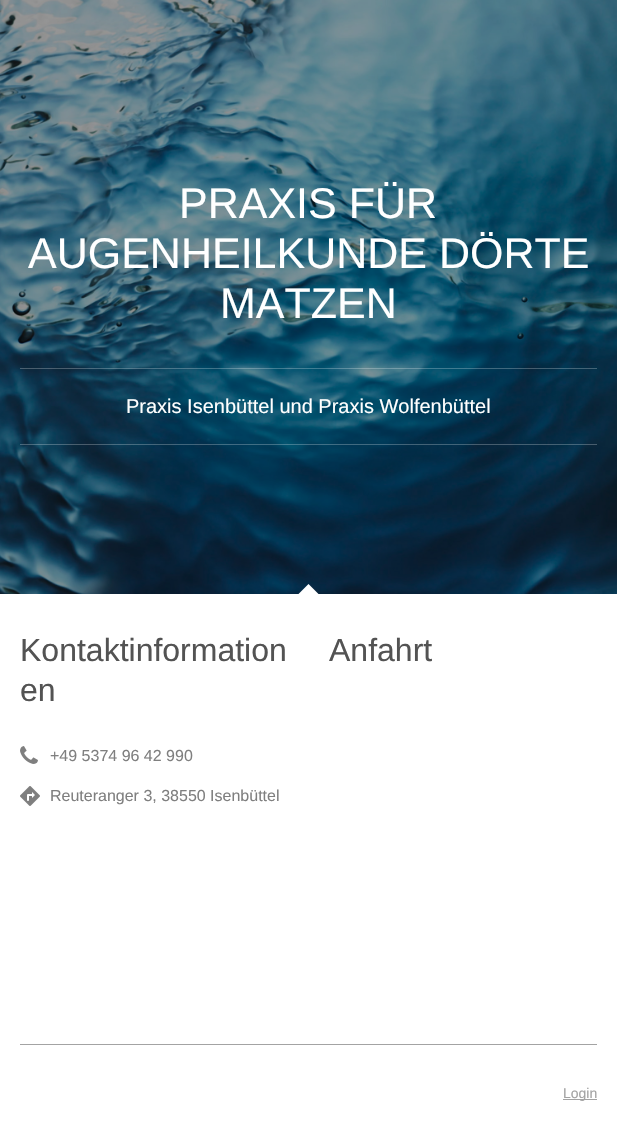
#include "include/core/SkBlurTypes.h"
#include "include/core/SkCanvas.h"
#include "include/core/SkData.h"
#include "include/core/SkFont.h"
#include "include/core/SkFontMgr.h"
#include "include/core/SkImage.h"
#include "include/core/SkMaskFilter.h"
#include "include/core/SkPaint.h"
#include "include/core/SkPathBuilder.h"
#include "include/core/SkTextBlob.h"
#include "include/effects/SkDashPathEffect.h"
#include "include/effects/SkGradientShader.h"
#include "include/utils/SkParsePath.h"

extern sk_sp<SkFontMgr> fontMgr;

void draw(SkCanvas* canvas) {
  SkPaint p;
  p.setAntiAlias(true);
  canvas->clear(SK_ColorWHITE);
  canvas->drawImageRect(SkImages::DeferredFromEncodedData(SkData::MakeFromFileName("images/1.png")), SkRect::MakeLTRB(0, 0, 617, 594), SkSamplingOptions());
  p.setColor(SkColorSetARGB(64, 255, 255, 255));
  canvas->drawRect(SkRect::MakeLTRB(20, 368, 597, 369), p);
  canvas->drawRect(SkRect::MakeLTRB(20, 444, 597, 445), p);
  p.setColor(SK_ColorWHITE);
  canvas->drawPath(SkPathBuilder().moveTo(308.5f, 584).lineTo(322.5f, 598).lineTo(308.5f, 612).lineTo(294.5f, 598).close().detach(), p);
  canvas->drawImageRect(SkImages::DeferredFromEncodedData(SkData::MakeFromFileName("images/2.png")), SkRect::MakeLTRB(20, 746, 38, 764), SkSamplingOptions());
  canvas->drawImageRect(SkImages::DeferredFromEncodedData(SkData::MakeFromFileName("images/3.png")), SkRect::MakeLTRB(20, 786, 40, 806), SkSamplingOptions());
  p.setColor(SkColorSetRGB(163, 163, 163));
  canvas->drawRect(SkRect::MakeLTRB(20, 1044, 597, 1045), p);
  canvas->drawRect(SkRect::MakeLTRB(563, 1099, 597, 1100), p);
  SkFont font1(fontMgr->matchFamilyStyle("Liberation Sans", SkFontStyle::Normal()), 43);
  font1.setSubpixel(true);
  p.setColor(SK_ColorWHITE);
  canvas->drawString("PRAXIS FÜR", 179, 218, font1, p);
  canvas->drawString("AUGENHEILKUNDE DÖRTE", 28, 268, font1, p);
  canvas->drawString("MATZEN", 220, 318, font1, p);
  SkFont font2(fontMgr->matchFamilyStyle("Liberation Sans", SkFontStyle::Normal()), 20);
  font2.setSubpixel(true);
  canvas->drawString("Praxis Isenbüttel und Praxis Wolfenbüttel", 126, 413, font2, p);
  SkFont font3(fontMgr->matchFamilyStyle("Liberation Sans", SkFontStyle::Normal()), 32);
  font3.setSubpixel(true);
  p.setColor(SkColorSetRGB(83, 83, 83));
  canvas->drawString("Kontaktinformation", 20, 661, font3, p);
  canvas->drawString("en", 20, 701, font3, p);
  SkFont font4(fontMgr->matchFamilyStyle("Liberation Sans", SkFontStyle::Normal()), 16);
  font4.setSubpixel(true);
  p.setColor(SkColorSetRGB(127, 127, 127));
  canvas->drawString("+49 5374 96 42 990", 50, 761, font4, p);
  canvas->drawString("Reuteranger 3, 38550 Isenbüttel", 50, 801, font4, p);
  p.setColor(SkColorSetRGB(83, 83, 83));
  canvas->drawString("Anfahrt", 329, 661, font3, p);
  SkFont font5(fontMgr->matchFamilyStyle("Liberation Sans", SkFontStyle::Normal()), 14);
  font5.setSubpixel(true);
  p.setColor(SkColorSetRGB(163, 163, 163));
  canvas->drawString("Login", 563, 1098, font5, p);
}
